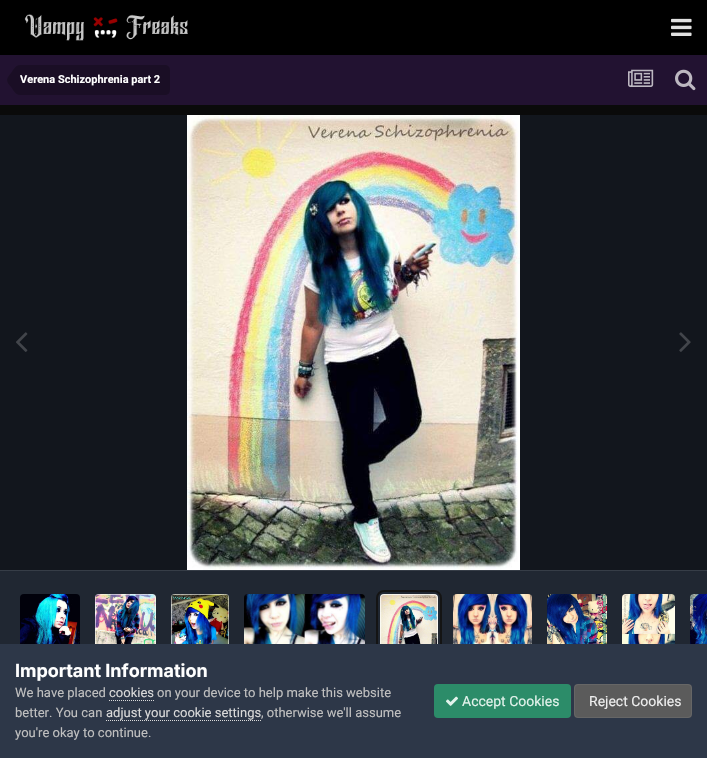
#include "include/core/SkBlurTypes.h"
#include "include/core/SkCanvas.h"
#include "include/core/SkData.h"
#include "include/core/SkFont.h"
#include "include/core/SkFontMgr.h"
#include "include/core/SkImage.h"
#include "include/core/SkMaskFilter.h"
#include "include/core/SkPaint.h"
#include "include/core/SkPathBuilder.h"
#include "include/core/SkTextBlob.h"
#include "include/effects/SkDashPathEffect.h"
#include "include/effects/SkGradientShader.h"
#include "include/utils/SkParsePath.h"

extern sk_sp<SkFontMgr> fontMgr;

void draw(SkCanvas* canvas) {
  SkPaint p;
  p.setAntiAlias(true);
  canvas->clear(SkColorSetRGB(10, 10, 10));
  p.setColor(SK_ColorBLACK);
  canvas->drawRect(SkRect::MakeLTRB(0, 0, 707, 55), p);
  canvas->drawImageRect(SkImages::DeferredFromEncodedData(SkData::MakeFromFileName("images/1.png")), SkRect::MakeLTRB(24, 14, 188, 41), SkSamplingOptions());
  canvas->drawImageRect(SkImages::DeferredFromEncodedData(SkData::MakeFromFileName("images/2.png")), SkRect::MakeLTRB(671, 18, 692, 36), SkSamplingOptions());
  p.setColor(SkColorSetRGB(34, 18, 49));
  canvas->drawRect(SkRect::MakeLTRB(0, 55, 707, 105), p);
  p.setColor(SkColorSetRGB(26, 14, 37));
  canvas->drawPath(SkPathBuilder().moveTo(20, 65).lineTo(165, 65).cubicTo(168, 65, 170, 67, 170, 70).lineTo(170, 90).cubicTo(170, 93, 168, 95, 165, 95).lineTo(20, 95).close().detach(), p);
  canvas->drawPath(SkPathBuilder().moveTo(20, 80).lineTo(20, 95).cubicTo(15.5f, 95, 13.5f, 90.5f, 11, 87).cubicTo(9.5f, 85, 7, 83, 7, 80).close().moveTo(20, 80).lineTo(7, 80).cubicTo(7, 77, 9.5f, 75, 11, 73).cubicTo(13.5f, 69.5f, 15.5f, 65, 20, 65).close().detach(), p);
  canvas->drawImageRect(SkImages::DeferredFromEncodedData(SkData::MakeFromFileName("images/3.png")), SkRect::MakeLTRB(628, 69, 654, 87), SkSamplingOptions());
  canvas->drawImageRect(SkImages::DeferredFromEncodedData(SkData::MakeFromFileName("images/4.png")), SkRect::MakeLTRB(675, 69, 696, 91), SkSamplingOptions());
  p.setColor(SkColorSetRGB(18, 22, 29));
  canvas->drawRect(SkRect::MakeLTRB(0, 115, 707, 570), p);
  canvas->drawImageRect(SkImages::DeferredFromEncodedData(SkData::MakeFromFileName("images/5.png")), SkRect::MakeLTRB(187, 115, 520, 570), SkSamplingOptions());
  canvas->drawImageRect(SkImages::DeferredFromEncodedData(SkData::MakeFromFileName("images/6.png")), SkRect::MakeLTRB(16, 332, 28, 352), SkSamplingOptions());
  canvas->drawImageRect(SkImages::DeferredFromEncodedData(SkData::MakeFromFileName("images/7.png")), SkRect::MakeLTRB(679, 332, 691, 352), SkSamplingOptions());
  p.setColor(SkColorSetRGB(32, 39, 50));
  canvas->drawRect(SkRect::MakeLTRB(0, 571, 707, 644), p);
  p.setColor(SkColorSetRGB(54, 61, 71));
  canvas->drawRect(SkRect::MakeLTRB(0, 570, 707, 571), p);
  canvas->drawImageRect(SkImages::DeferredFromEncodedData(SkData::MakeFromFileName("images/8.png")), SkRect::MakeLTRB(20, 594, 80, 644), SkSamplingOptions());
  canvas->drawImageRect(SkImages::DeferredFromEncodedData(SkData::MakeFromFileName("images/9.png")), SkRect::MakeLTRB(95, 594, 156, 644), SkSamplingOptions());
  canvas->drawImageRect(SkImages::DeferredFromEncodedData(SkData::MakeFromFileName("images/10.png")), SkRect::MakeLTRB(171, 594, 229, 644), SkSamplingOptions());
  canvas->drawImageRect(SkImages::DeferredFromEncodedData(SkData::MakeFromFileName("images/11.png")), SkRect::MakeLTRB(244, 594, 365, 644), SkSamplingOptions());
  p.setStyle(SkPaint::kStroke_Style);
  p.setStrokeWidth(2);
  p.setColor(SkColorSetRGB(20, 20, 20));
  canvas->drawRoundRect(SkRect::MakeLTRB(377, 591, 441, 677), 7, 7, p);
  canvas->drawImageRect(SkImages::DeferredFromEncodedData(SkData::MakeFromFileName("images/12.png")), SkRect::MakeLTRB(380, 594, 438, 644), SkSamplingOptions());
  canvas->drawImageRect(SkImages::DeferredFromEncodedData(SkData::MakeFromFileName("images/13.png")), SkRect::MakeLTRB(453, 594, 532, 644), SkSamplingOptions());
  canvas->drawImageRect(SkImages::DeferredFromEncodedData(SkData::MakeFromFileName("images/14.png")), SkRect::MakeLTRB(547, 594, 607, 644), SkSamplingOptions());
  canvas->drawImageRect(SkImages::DeferredFromEncodedData(SkData::MakeFromFileName("images/15.png")), SkRect::MakeLTRB(622, 594, 675, 644), SkSamplingOptions());
  canvas->drawImageRect(SkImages::DeferredFromEncodedData(SkData::MakeFromFileName("images/16.png")), SkRect::MakeLTRB(690, 594, 707, 644), SkSamplingOptions());
  p.setStyle(SkPaint::kFill_Style);
  p.setColor(SkColorSetRGB(45, 55, 72));
  canvas->drawRect(SkRect::MakeLTRB(0, 644, 707, 758), p);
  p.setStyle(SkPaint::kStroke_Style);
  p.setStrokeWidth(1);
  p.setColor(SkColorSetRGB(218, 218, 218));
  p.setPathEffect(SkDashPathEffect::Make({{1, 1}}, 0));
  canvas->drawPath(SkPathBuilder().moveTo(109, 700.5f).lineTo(154, 700.5f).detach(), p);
  p.setPathEffect(nullptr);
  p.setPathEffect(SkDashPathEffect::Make({{1, 1}}, 0));
  canvas->drawPath(SkPathBuilder().moveTo(106, 720.5f).lineTo(261, 720.5f).detach(), p);
  p.setPathEffect(nullptr);
  p.setStyle(SkPaint::kFill_Style);
  p.setColor(SkColorSetRGB(44, 140, 105));
  canvas->drawRoundRect(SkRect::MakeLTRB(434, 684, 571, 718), 4, 4, p);
  canvas->drawImageRect(SkImages::DeferredFromEncodedData(SkData::MakeFromFileName("images/17.png")), SkRect::MakeLTRB(446, 696, 458, 706), SkSamplingOptions());
  p.setColor(SkColorSetRGB(91, 91, 91));
  canvas->drawRoundRect(SkRect::MakeLTRB(574, 684, 692, 718), 4, 4, p);
  p.setStyle(SkPaint::kStroke_Style);
  p.setColor(SkColorSetARGB(18, 238, 238, 238));
  canvas->drawRoundRect(SkRect::MakeLTRB(574.5f, 684.5f, 691.5f, 717.5f), 3.5f, 3.5f, p);
  SkFont font1(fontMgr->matchFamilyStyle("Roboto", SkFontStyle::Bold()), 11);
  font1.setSubpixel(true);
  p.setStyle(SkPaint::kFill_Style);
  p.setColor(SK_ColorWHITE);
  canvas->drawString("Verena Schizophrenia part 2", 20, 83, font1, p);
  SkFont font2(fontMgr->matchFamilyStyle("Inter", SkFontStyle::Bold()), 18);
  font2.setSubpixel(true);
  canvas->drawString("Important Information", 15, 677, font2, p);
  SkFont font3(fontMgr->matchFamilyStyle("Roboto", SkFontStyle::Normal()), 13);
  font3.setSubpixel(true);
  p.setColor(SkColorSetRGB(192, 192, 192));
  canvas->drawString("We have placed", 15, 697, font3, p);
  p.setColor(SkColorSetRGB(218, 218, 218));
  canvas->drawString("cookies", 109, 697, font3, p);
  p.setColor(SkColorSetRGB(192, 192, 192));
  canvas->drawString("on your device to help make this website", 157, 697, font3, p);
  canvas->drawString("better. You can", 15, 717, font3, p);
  p.setColor(SkColorSetRGB(218, 218, 218));
  canvas->drawString("adjust your cookie settings", 106, 717, font3, p);
  p.setColor(SkColorSetRGB(192, 192, 192));
  canvas->drawString(", otherwise we'll assume", 261, 717, font3, p);
  canvas->drawString("you're okay to continue.", 15, 737, font3, p);
  SkFont font4(fontMgr->matchFamilyStyle("Roboto", SkFontStyle::Normal()), 14);
  font4.setSubpixel(true);
  p.setColor(SkColorSetRGB(227, 243, 236));
  canvas->drawString("Accept Cookies", 462, 706, font4, p);
  p.setColor(SkColorSetRGB(238, 238, 238));
  canvas->drawString("Reject Cookies", 589, 706, font4, p);
}
